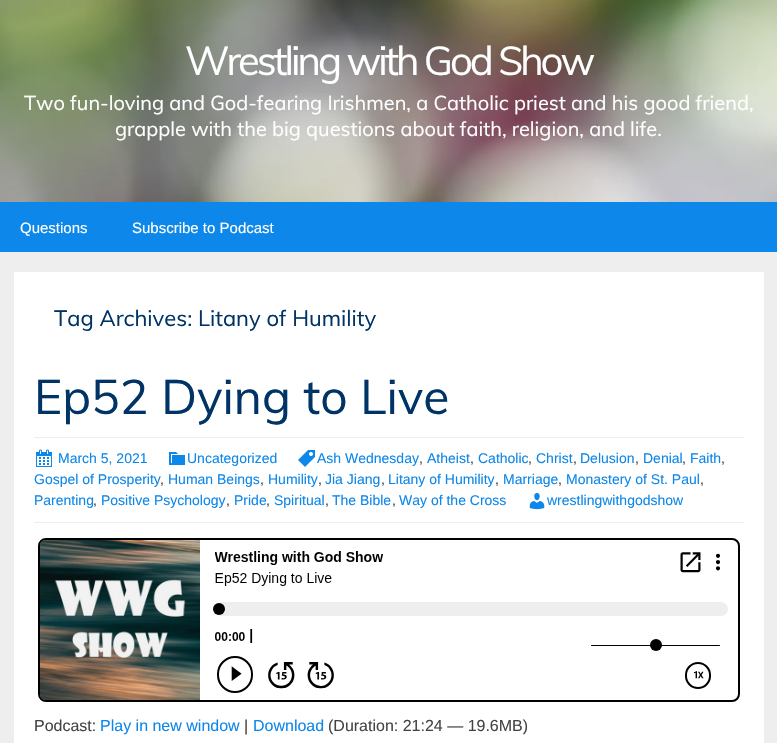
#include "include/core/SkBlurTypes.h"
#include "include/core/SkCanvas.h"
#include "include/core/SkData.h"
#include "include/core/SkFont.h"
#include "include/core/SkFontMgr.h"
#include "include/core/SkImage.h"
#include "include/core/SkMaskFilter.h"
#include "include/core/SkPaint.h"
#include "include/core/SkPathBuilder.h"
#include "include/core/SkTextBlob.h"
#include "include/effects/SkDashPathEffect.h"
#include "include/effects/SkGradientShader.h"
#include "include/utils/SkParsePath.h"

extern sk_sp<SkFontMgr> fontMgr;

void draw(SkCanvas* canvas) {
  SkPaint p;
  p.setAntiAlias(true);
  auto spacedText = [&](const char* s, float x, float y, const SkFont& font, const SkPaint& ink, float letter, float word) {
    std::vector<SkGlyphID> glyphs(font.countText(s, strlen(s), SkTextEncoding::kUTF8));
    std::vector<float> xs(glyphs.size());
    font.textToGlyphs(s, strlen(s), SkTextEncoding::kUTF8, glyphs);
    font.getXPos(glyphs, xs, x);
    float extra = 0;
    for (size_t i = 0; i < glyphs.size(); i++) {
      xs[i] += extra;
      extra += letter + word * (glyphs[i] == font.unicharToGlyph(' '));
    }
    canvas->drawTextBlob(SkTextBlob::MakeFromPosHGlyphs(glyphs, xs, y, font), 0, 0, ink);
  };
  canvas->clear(SkColorSetRGB(238, 238, 238));
  canvas->drawImageRect(SkImages::DeferredFromEncodedData(SkData::MakeFromFileName("images/1.png")), SkRect::MakeLTRB(0, 0, 777, 202), SkSamplingOptions());
  p.setColor(SkColorSetRGB(13, 135, 233));
  canvas->drawRect(SkRect::MakeLTRB(0, 202, 777, 252), p);
  p.setColor(SK_ColorWHITE);
  canvas->drawRect(SkRect::MakeLTRB(14, 272, 764, 743), p);
  p.setColor(SkColorSetRGB(236, 240, 241));
  canvas->drawRect(SkRect::MakeLTRB(34, 437, 744, 438), p);
  canvas->drawImageRect(SkImages::DeferredFromEncodedData(SkData::MakeFromFileName("images/2.png")), SkRect::MakeLTRB(298, 450, 315, 467), SkSamplingOptions());
  canvas->drawImageRect(SkImages::DeferredFromEncodedData(SkData::MakeFromFileName("images/3.png")), SkRect::MakeLTRB(36, 449, 52, 467), SkSamplingOptions());
  canvas->drawImageRect(SkImages::DeferredFromEncodedData(SkData::MakeFromFileName("images/4.png")), SkRect::MakeLTRB(169, 452, 185, 465), SkSamplingOptions());
  canvas->drawImageRect(SkImages::DeferredFromEncodedData(SkData::MakeFromFileName("images/5.png")), SkRect::MakeLTRB(529, 493, 545, 510), SkSamplingOptions());
  canvas->drawRect(SkRect::MakeLTRB(34, 522, 744, 523), p);
  canvas->drawImageRect(SkImages::DeferredFromEncodedData(SkData::MakeFromFileName("images/6.png")), SkRect::MakeLTRB(38, 538, 740, 702), SkSamplingOptions());
  SkFont font1(fontMgr->matchFamilyStyle("Muli", SkFontStyle::Normal()), 40);
  font1.setSubpixel(true);
  p.setColor(SK_ColorWHITE);
  spacedText("Wrestling with God Show", 185, 75, font1, p, -3, 0);
  SkFont font2(fontMgr->matchFamilyStyle("Muli", SkFontStyle::Normal()), 20);
  font2.setSubpixel(true);
  canvas->drawString("Two fun-loving and God-fearing Irishmen, a Catholic priest and his good friend,", 24, 110, font2, p);
  canvas->drawString("grapple with the big questions about faith, religion, and life.", 115, 136, font2, p);
  SkFont font3(fontMgr->matchFamilyStyle("Liberation Sans", SkFontStyle::Normal()), 15);
  font3.setSubpixel(true);
  canvas->drawString("Questions", 20, 233, font3, p);
  canvas->drawString("Subscribe to Podcast", 132, 233, font3, p);
  SkFont font4(fontMgr->matchFamilyStyle("Muli", SkFontStyle::Normal()), 22);
  font4.setSubpixel(true);
  p.setColor(SkColorSetRGB(0, 51, 102));
  canvas->drawString("Tag Archives: Litany of Humility", 54, 326, font4, p);
  SkFont font5(fontMgr->matchFamilyStyle("Muli", SkFontStyle::Normal()), 48);
  font5.setSubpixel(true);
  canvas->drawString("Ep52 Dying to Live", 34, 414, font5, p);
  SkFont font6(fontMgr->matchFamilyStyle("Liberation Sans", SkFontStyle::Normal()), 14);
  font6.setSubpixel(true);
  p.setColor(SkColorSetRGB(13, 135, 233));
  canvas->drawString("Ash Wednesday", 317, 463, font6, p);
  p.setColor(SkColorSetRGB(68, 68, 68));
  canvas->drawString(",", 419, 463, font6, p);
  p.setColor(SkColorSetRGB(13, 135, 233));
  canvas->drawString("Atheist", 427, 463, font6, p);
  p.setColor(SkColorSetRGB(68, 68, 68));
  canvas->drawString(",", 470, 463, font6, p);
  p.setColor(SkColorSetRGB(13, 135, 233));
  canvas->drawString("Catholic", 478, 463, font6, p);
  p.setColor(SkColorSetRGB(68, 68, 68));
  canvas->drawString(",", 528, 463, font6, p);
  p.setColor(SkColorSetRGB(13, 135, 233));
  canvas->drawString("Christ", 536, 463, font6, p);
  p.setColor(SkColorSetRGB(68, 68, 68));
  canvas->drawString(",", 573, 463, font6, p);
  p.setColor(SkColorSetRGB(13, 135, 233));
  canvas->drawString("Delusion", 580, 463, font6, p);
  p.setColor(SkColorSetRGB(68, 68, 68));
  canvas->drawString(",", 635, 463, font6, p);
  p.setColor(SkColorSetRGB(13, 135, 233));
  canvas->drawString("Denial", 643, 463, font6, p);
  p.setColor(SkColorSetRGB(68, 68, 68));
  canvas->drawString(",", 682, 463, font6, p);
  p.setColor(SkColorSetRGB(13, 135, 233));
  canvas->drawString("Faith", 690, 463, font6, p);
  p.setColor(SkColorSetRGB(68, 68, 68));
  canvas->drawString(",", 721, 463, font6, p);
  p.setColor(SkColorSetRGB(13, 135, 233));
  canvas->drawString("Gospel of Prosperity", 34, 484, font6, p);
  p.setColor(SkColorSetRGB(68, 68, 68));
  canvas->drawString(",", 160, 484, font6, p);
  p.setColor(SkColorSetRGB(13, 135, 233));
  canvas->drawString("Human Beings", 168, 484, font6, p);
  p.setColor(SkColorSetRGB(68, 68, 68));
  canvas->drawString(",", 260, 484, font6, p);
  p.setColor(SkColorSetRGB(13, 135, 233));
  canvas->drawString("Humility", 268, 484, font6, p);
  p.setColor(SkColorSetRGB(68, 68, 68));
  canvas->drawString(",", 318, 484, font6, p);
  p.setColor(SkColorSetRGB(13, 135, 233));
  canvas->drawString("Jia Jiang", 325, 484, font6, p);
  p.setColor(SkColorSetRGB(68, 68, 68));
  canvas->drawString(",", 381, 484, font6, p);
  p.setColor(SkColorSetRGB(13, 135, 233));
  canvas->drawString("Litany of Humility", 388, 484, font6, p);
  p.setColor(SkColorSetRGB(68, 68, 68));
  canvas->drawString(",", 495, 484, font6, p);
  p.setColor(SkColorSetRGB(13, 135, 233));
  canvas->drawString("Marriage", 503, 484, font6, p);
  p.setColor(SkColorSetRGB(68, 68, 68));
  canvas->drawString(",", 558, 484, font6, p);
  p.setColor(SkColorSetRGB(13, 135, 233));
  canvas->drawString("Monastery of St. Paul", 566, 484, font6, p);
  p.setColor(SkColorSetRGB(68, 68, 68));
  canvas->drawString(",", 700, 484, font6, p);
  p.setColor(SkColorSetRGB(13, 135, 233));
  canvas->drawString("Parenting", 34, 505, font6, p);
  p.setColor(SkColorSetRGB(68, 68, 68));
  canvas->drawString(",", 93, 505, font6, p);
  p.setColor(SkColorSetRGB(13, 135, 233));
  canvas->drawString("Positive Psychology", 101, 505, font6, p);
  p.setColor(SkColorSetRGB(68, 68, 68));
  canvas->drawString(",", 226, 505, font6, p);
  p.setColor(SkColorSetRGB(13, 135, 233));
  canvas->drawString("Pride", 234, 505, font6, p);
  p.setColor(SkColorSetRGB(68, 68, 68));
  canvas->drawString(",", 266, 505, font6, p);
  p.setColor(SkColorSetRGB(13, 135, 233));
  canvas->drawString("Spiritual", 274, 505, font6, p);
  p.setColor(SkColorSetRGB(68, 68, 68));
  canvas->drawString(",", 325, 505, font6, p);
  p.setColor(SkColorSetRGB(13, 135, 233));
  canvas->drawString("The Bible", 332, 505, font6, p);
  p.setColor(SkColorSetRGB(68, 68, 68));
  canvas->drawString(",", 392, 505, font6, p);
  p.setColor(SkColorSetRGB(13, 135, 233));
  canvas->drawString("Way of the Cross", 399, 505, font6, p);
  canvas->drawString("March 5, 2021", 58, 463, font6, p);
  canvas->drawString("Uncategorized", 187, 463, font6, p);
  canvas->drawString("wrestlingwithgodshow", 547, 505, font6, p);
  SkFont font7(fontMgr->matchFamilyStyle("Liberation Sans", SkFontStyle::Normal()), 16);
  font7.setSubpixel(true);
  p.setColor(SkColorSetRGB(68, 68, 68));
  canvas->drawString("Podcast:", 34, 731, font7, p);
  p.setColor(SkColorSetRGB(13, 135, 233));
  canvas->drawString("Play in new window", 100, 731, font7, p);
  p.setColor(SkColorSetRGB(68, 68, 68));
  canvas->drawString("|", 244, 731, font7, p);
  p.setColor(SkColorSetRGB(13, 135, 233));
  canvas->drawString("Download", 253, 731, font7, p);
  p.setColor(SkColorSetRGB(68, 68, 68));
  canvas->drawString("(Duration: 21:24 — 19.6MB)", 328, 731, font7, p);
}
